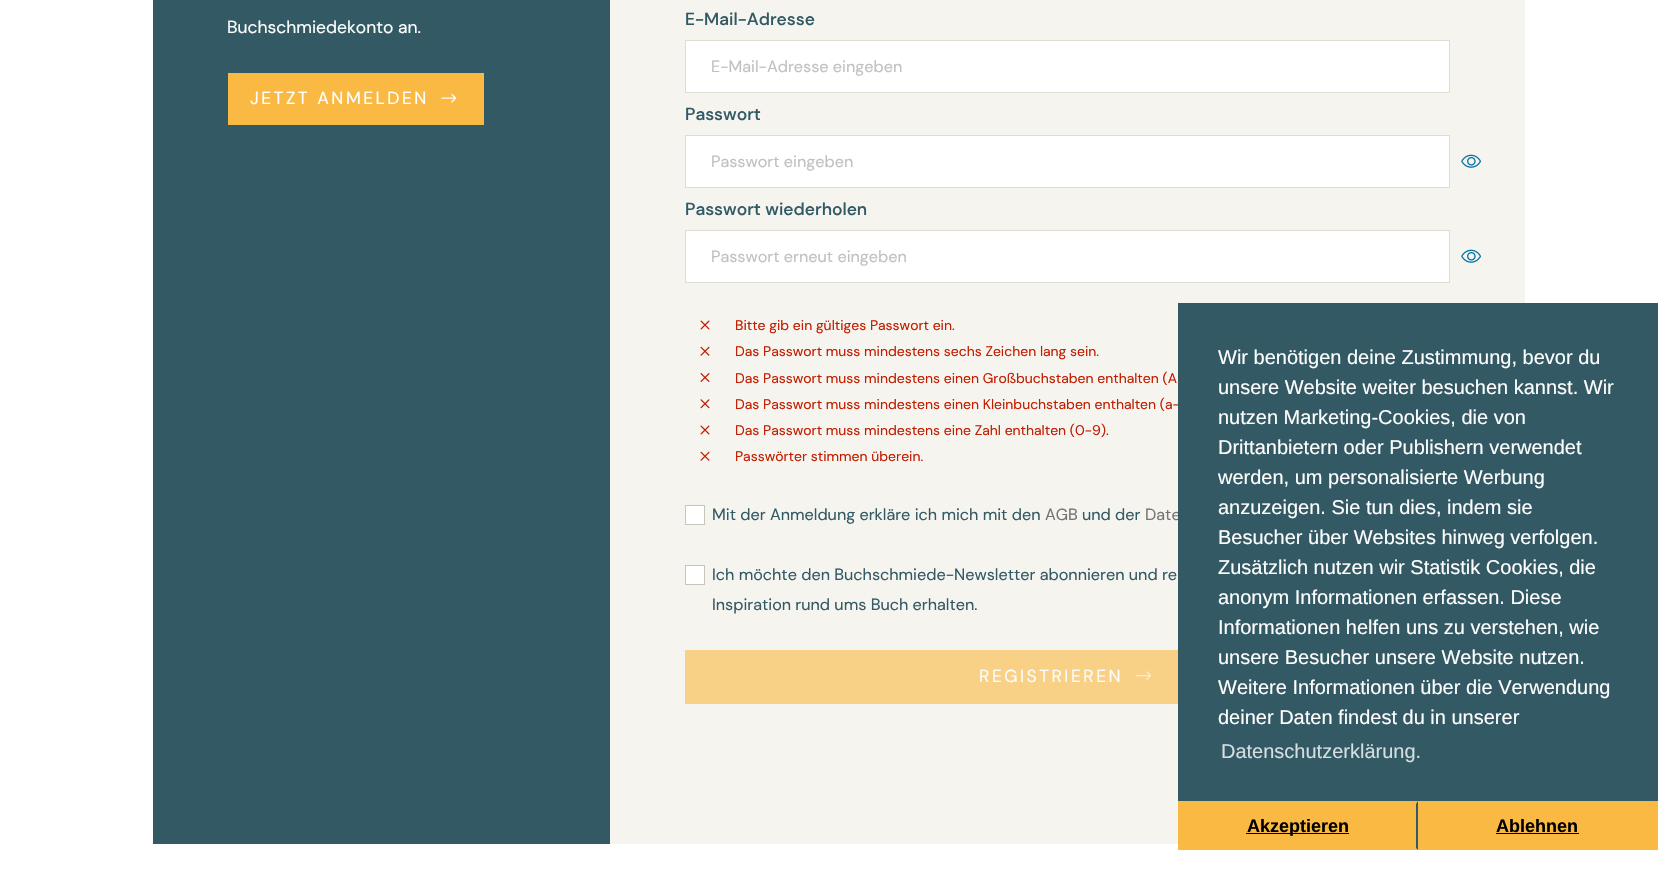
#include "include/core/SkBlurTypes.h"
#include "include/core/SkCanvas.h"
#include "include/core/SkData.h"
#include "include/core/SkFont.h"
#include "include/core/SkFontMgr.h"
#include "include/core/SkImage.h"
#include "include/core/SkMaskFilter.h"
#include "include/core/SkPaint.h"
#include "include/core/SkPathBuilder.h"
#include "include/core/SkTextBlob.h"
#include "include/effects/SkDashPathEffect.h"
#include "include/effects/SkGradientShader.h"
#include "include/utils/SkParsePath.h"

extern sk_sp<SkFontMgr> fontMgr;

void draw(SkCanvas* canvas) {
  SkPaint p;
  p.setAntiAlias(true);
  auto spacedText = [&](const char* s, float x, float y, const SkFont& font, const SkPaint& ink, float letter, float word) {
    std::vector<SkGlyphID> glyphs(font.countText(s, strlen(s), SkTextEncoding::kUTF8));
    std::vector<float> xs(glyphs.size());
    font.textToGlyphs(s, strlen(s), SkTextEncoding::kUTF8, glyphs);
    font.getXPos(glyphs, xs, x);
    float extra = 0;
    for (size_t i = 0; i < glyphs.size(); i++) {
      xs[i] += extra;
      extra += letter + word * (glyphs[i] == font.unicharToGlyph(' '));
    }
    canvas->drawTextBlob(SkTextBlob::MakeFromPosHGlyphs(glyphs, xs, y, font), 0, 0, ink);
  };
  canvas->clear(SK_ColorWHITE);
  p.setColor(SkColorSetRGB(51, 90, 100));
  canvas->drawRect(SkRect::MakeLTRB(153, 0, 610, 844), p);
  p.setColor(SkColorSetRGB(250, 185, 66));
  canvas->drawRect(SkRect::MakeLTRB(228, 73, 484, 125), p);
  canvas->drawImageRect(SkImages::DeferredFromEncodedData(SkData::MakeFromFileName("images/1.png")), SkRect::MakeLTRB(441, 93, 457, 103), SkSamplingOptions());
  p.setColor(SkColorSetRGB(245, 244, 239));
  canvas->drawRect(SkRect::MakeLTRB(610, 0, 1525, 844), p);
  p.setColor(SK_ColorWHITE);
  canvas->drawRect(SkRect::MakeLTRB(685.5f, 40.5f, 1449.5f, 92.5f), p);
  p.setStyle(SkPaint::kStroke_Style);
  p.setStrokeWidth(1);
  p.setColor(SkColorSetRGB(222, 221, 208));
  canvas->drawRect(SkRect::MakeLTRB(685.5f, 40.5f, 1449.5f, 92.5f), p);
  p.setStyle(SkPaint::kFill_Style);
  p.setColor(SK_ColorWHITE);
  canvas->drawRect(SkRect::MakeLTRB(685.5f, 135.5f, 1449.5f, 187.5f), p);
  p.setStyle(SkPaint::kStroke_Style);
  p.setColor(SkColorSetRGB(222, 221, 208));
  canvas->drawRect(SkRect::MakeLTRB(685.5f, 135.5f, 1449.5f, 187.5f), p);
  canvas->drawImageRect(SkImages::DeferredFromEncodedData(SkData::MakeFromFileName("images/2.png")), SkRect::MakeLTRB(1461, 154, 1482, 168), SkSamplingOptions());
  p.setStyle(SkPaint::kFill_Style);
  p.setColor(SK_ColorWHITE);
  canvas->drawRect(SkRect::MakeLTRB(685.5f, 230.5f, 1449.5f, 282.5f), p);
  p.setStyle(SkPaint::kStroke_Style);
  p.setColor(SkColorSetRGB(222, 221, 208));
  canvas->drawRect(SkRect::MakeLTRB(685.5f, 230.5f, 1449.5f, 282.5f), p);
  canvas->drawImageRect(SkImages::DeferredFromEncodedData(SkData::MakeFromFileName("images/2.png")), SkRect::MakeLTRB(1461, 249, 1482, 263), SkSamplingOptions());
  canvas->drawImageRect(SkImages::DeferredFromEncodedData(SkData::MakeFromFileName("images/3.png")), SkRect::MakeLTRB(700, 320, 710, 330), SkSamplingOptions());
  canvas->drawImageRect(SkImages::DeferredFromEncodedData(SkData::MakeFromFileName("images/4.png")), SkRect::MakeLTRB(700, 346, 710, 356), SkSamplingOptions());
  canvas->drawImageRect(SkImages::DeferredFromEncodedData(SkData::MakeFromFileName("images/5.png")), SkRect::MakeLTRB(700, 373, 710, 382), SkSamplingOptions());
  canvas->drawImageRect(SkImages::DeferredFromEncodedData(SkData::MakeFromFileName("images/6.png")), SkRect::MakeLTRB(700, 399, 710, 409), SkSamplingOptions());
  canvas->drawImageRect(SkImages::DeferredFromEncodedData(SkData::MakeFromFileName("images/3.png")), SkRect::MakeLTRB(700, 425, 710, 435), SkSamplingOptions());
  canvas->drawImageRect(SkImages::DeferredFromEncodedData(SkData::MakeFromFileName("images/4.png")), SkRect::MakeLTRB(700, 451, 710, 461), SkSamplingOptions());
  p.setStyle(SkPaint::kFill_Style);
  p.setColor(SK_ColorWHITE);
  canvas->drawRect(SkRect::MakeLTRB(685.5f, 505.5f, 704.5f, 524.5f), p);
  p.setStyle(SkPaint::kStroke_Style);
  p.setColor(SkColorSetRGB(199, 198, 184));
  canvas->drawRect(SkRect::MakeLTRB(685.5f, 505.5f, 704.5f, 524.5f), p);
  p.setStyle(SkPaint::kFill_Style);
  p.setColor(SK_ColorWHITE);
  canvas->drawRect(SkRect::MakeLTRB(685.5f, 565.5f, 704.5f, 584.5f), p);
  p.setStyle(SkPaint::kStroke_Style);
  p.setColor(SkColorSetRGB(199, 198, 184));
  canvas->drawRect(SkRect::MakeLTRB(685.5f, 565.5f, 704.5f, 584.5f), p);
  p.setStyle(SkPaint::kFill_Style);
  p.setColor(SkColorSetRGB(248, 209, 135));
  canvas->drawRect(SkRect::MakeLTRB(685, 650, 1178, 704), p);
  canvas->drawImageRect(SkImages::DeferredFromEncodedData(SkData::MakeFromFileName("images/7.png")), SkRect::MakeLTRB(1136, 671, 1152, 680), SkSamplingOptions());
  p.setColor(SkColorSetRGB(250, 185, 66));
  canvas->drawRect(SkRect::MakeLTRB(1178, 801, 1658, 850), p);
  p.setColor(SkColorSetRGB(51, 90, 100));
  canvas->drawPath(SkPathBuilder().moveTo(1418, 801).lineTo(1418, 850).lineTo(1416, 848).lineTo(1416, 804).close().detach(), p);
  p.setColor(SK_ColorBLACK);
  canvas->drawRect(SkRect::MakeLTRB(1246, 833, 1349, 834), p);
  canvas->drawRect(SkRect::MakeLTRB(1496, 833, 1579, 834), p);
  SkFont font1(fontMgr->matchFamilyStyle("DM Sans", SkFontStyle::Normal()), 17.5f);
  font1.setSubpixel(true);
  p.setColor(SK_ColorWHITE);
  canvas->drawString("Buchschmiedekonto an.", 227, 33, font1, p);
  spacedText("JETZT ANMELDEN", 250, 104, font1, p, 2.5f, 0);
  SkFont font2(fontMgr->matchFamilyStyle("DM Sans", SkFontStyle(500, SkFontStyle::kNormal_Width, SkFontStyle::kUpright_Slant)), 17.5f);
  font2.setSubpixel(true);
  p.setColor(SkColorSetRGB(51, 90, 100));
  canvas->drawString("E-Mail-Adresse", 685, 25, font2, p);
  SkFont font3(fontMgr->matchFamilyStyle("DM Sans", SkFontStyle::Normal()), 16.25f);
  font3.setSubpixel(true);
  p.setColor(SkColorSetRGB(193, 193, 193));
  canvas->drawString("E-Mail-Adresse eingeben", 711, 72, font3, p);
  p.setColor(SkColorSetRGB(51, 90, 100));
  canvas->drawString("Passwort", 685, 120, font2, p);
  p.setColor(SkColorSetRGB(193, 193, 193));
  canvas->drawString("Passwort eingeben", 711, 167, font3, p);
  p.setColor(SkColorSetRGB(51, 90, 100));
  canvas->drawString("Passwort wiederholen", 685, 215, font2, p);
  p.setColor(SkColorSetRGB(193, 193, 193));
  canvas->drawString("Passwort erneut eingeben", 711, 262, font3, p);
  SkFont font4(fontMgr->matchFamilyStyle("DM Sans", SkFontStyle::Normal()), 14);
  font4.setSubpixel(true);
  p.setColor(SkColorSetRGB(194, 29, 0));
  canvas->drawString("Bitte gib ein gültiges Passwort ein.", 735, 330, font4, p);
  canvas->drawString("Das Passwort muss mindestens sechs Zeichen lang sein.", 735, 356, font4, p);
  canvas->drawString("Das Passwort muss mindestens einen Großbuchstaben enthalten (A", 735, 383, font4, p);
  canvas->drawString("Das Passwort muss mindestens einen Kleinbuchstaben enthalten (a-", 735, 409, font4, p);
  canvas->drawString("Das Passwort muss mindestens eine Zahl enthalten (0-9).", 735, 435, font4, p);
  canvas->drawString("Passwörter stimmen überein.", 735, 461, font4, p);
  p.setColor(SkColorSetRGB(51, 90, 100));
  canvas->drawString("Mit der Anmeldung erkläre ich mich mit den", 712, 520, font3, p);
  p.setColor(SkColorSetRGB(116, 116, 116));
  canvas->drawString("AGB", 1045, 520, font3, p);
  p.setColor(SkColorSetRGB(51, 90, 100));
  canvas->drawString("und der", 1082, 520, font3, p);
  p.setColor(SkColorSetRGB(116, 116, 116));
  canvas->drawString("Date", 1145, 520, font3, p);
  p.setColor(SkColorSetRGB(51, 90, 100));
  canvas->drawString("Ich möchte den Buchschmiede-Newsletter abonnieren und re", 712, 580, font3, p);
  canvas->drawString("Inspiration rund ums Buch erhalten.", 712, 610, font3, p);
  p.setColor(SkColorSetRGB(251, 251, 249));
  spacedText("REGISTRIEREN", 979, 682, font1, p, 2.5f, 0);
  p.setColor(SkColorSetRGB(51, 90, 100));
  canvas->drawRect(SkRect::MakeLTRB(1178, 303, 1658, 801), p);
  SkFont font5(fontMgr->matchFamilyStyle("Liberation Sans", SkFontStyle::Normal()), 20);
  font5.setSubpixel(true);
  p.setColor(SK_ColorWHITE);
  canvas->drawString("Wir benötigen deine Zustimmung, bevor du", 1218, 364, font5, p);
  canvas->drawString("unsere Website weiter besuchen kannst. Wir", 1218, 394, font5, p);
  canvas->drawString("nutzen Marketing-Cookies, die von", 1218, 424, font5, p);
  canvas->drawString("Drittanbietern oder Publishern verwendet", 1218, 454, font5, p);
  canvas->drawString("werden, um personalisierte Werbung", 1218, 484, font5, p);
  canvas->drawString("anzuzeigen. Sie tun dies, indem sie", 1218, 514, font5, p);
  canvas->drawString("Besucher über Websites hinweg verfolgen.", 1218, 544, font5, p);
  canvas->drawString("Zusätzlich nutzen wir Statistik Cookies, die", 1218, 574, font5, p);
  canvas->drawString("anonym Informationen erfassen. Diese", 1218, 604, font5, p);
  canvas->drawString("Informationen helfen uns zu verstehen, wie", 1218, 634, font5, p);
  canvas->drawString("unsere Besucher unsere Website nutzen.", 1218, 664, font5, p);
  canvas->drawString("Weitere Informationen über die Verwendung", 1218, 694, font5, p);
  canvas->drawString("deiner Daten findest du in unserer", 1218, 724, font5, p);
  p.setColor(SkColorSetRGB(214, 222, 224));
  canvas->drawString("Datenschutzerklärung.", 1221, 758, font5, p);
  SkFont font6(fontMgr->matchFamilyStyle("Liberation Sans", SkFontStyle::Bold()), 18);
  font6.setSubpixel(true);
  p.setColor(SK_ColorBLACK);
  canvas->drawString("Akzeptieren", 1247, 832, font6, p);
  canvas->drawString("Ablehnen", 1496, 832, font6, p);
}
